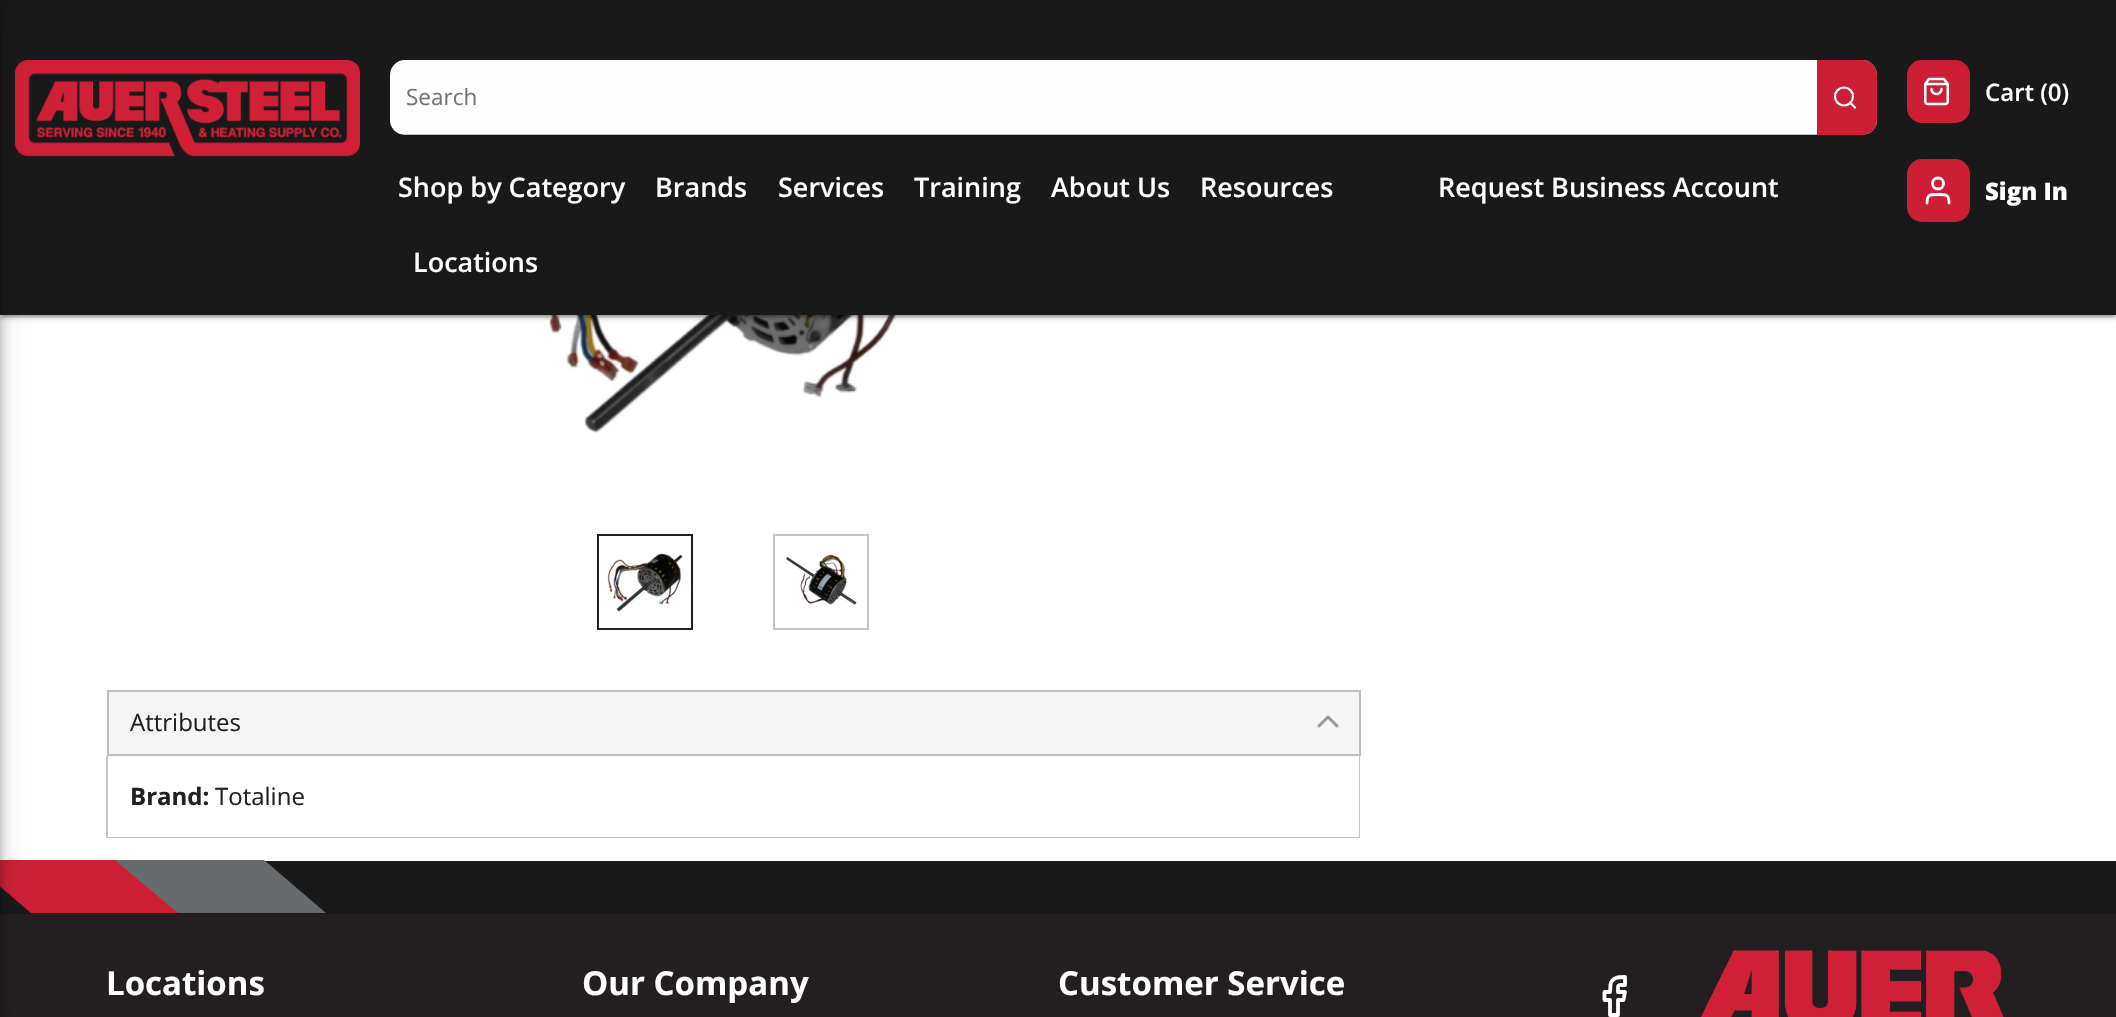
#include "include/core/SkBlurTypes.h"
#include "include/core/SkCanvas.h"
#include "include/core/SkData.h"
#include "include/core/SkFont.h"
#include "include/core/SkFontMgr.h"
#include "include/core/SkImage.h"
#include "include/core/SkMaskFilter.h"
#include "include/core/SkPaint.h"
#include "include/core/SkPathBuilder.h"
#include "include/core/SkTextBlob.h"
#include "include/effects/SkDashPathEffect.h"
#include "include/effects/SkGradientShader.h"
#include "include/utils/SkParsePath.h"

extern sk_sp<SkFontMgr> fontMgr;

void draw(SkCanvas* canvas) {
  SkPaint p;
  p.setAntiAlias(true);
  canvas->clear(SK_ColorWHITE);
  canvas->drawImageRect(SkImages::DeferredFromEncodedData(SkData::MakeFromFileName("images/3.png")), SkRect::MakeLTRB(538, 315, 923, 433), SkSamplingOptions());
  p.setColor(SkColorSetARGB(31, 0, 0, 0));
  p.setMaskFilter(SkMaskFilter::MakeBlur(kNormal_SkBlurStyle, 4));
  canvas->drawRect(SkRect::MakeLTRB(0, 2, 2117, 317), p);
  p.setMaskFilter(nullptr);
  p.setColor(SkColorSetARGB(36, 0, 0, 0));
  p.setMaskFilter(SkMaskFilter::MakeBlur(kNormal_SkBlurStyle, 1.5f));
  canvas->drawRect(SkRect::MakeLTRB(0, 3, 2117, 318), p);
  p.setMaskFilter(nullptr);
  p.setColor(SkColorSetARGB(51, 0, 0, 0));
  p.setMaskFilter(SkMaskFilter::MakeBlur(kNormal_SkBlurStyle, 1));
  canvas->drawRect(SkRect::MakeLTRB(3, 8, 2114, 317), p);
  p.setMaskFilter(nullptr);
  p.setColor(SkColorSetRGB(25, 25, 25));
  canvas->drawRect(SkRect::MakeLTRB(0, 0, 2116, 315), p);
  canvas->drawImageRect(SkImages::DeferredFromEncodedData(SkData::MakeFromFileName("images/1.png")), SkRect::MakeLTRB(15, 60, 360, 157), SkSamplingOptions());
  p.setColor(SkColorSetRGB(35, 31, 32));
  canvas->drawRect(SkRect::MakeLTRB(0, 914, 2116, 1017), p);
  p.setColor(SkColorSetRGB(25, 25, 25));
  canvas->drawRect(SkRect::MakeLTRB(0, 861, 2116, 914), p);
  p.setColor(SkColorSetRGB(205, 32, 55));
  canvas->drawPath(SkPathBuilder().moveTo(-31, 860).lineTo(117, 860).lineTo(179, 913).lineTo(31, 913).close().detach(), p);
  p.setColor(SkColorSetARGB(31, 0, 0, 0));
  p.setMaskFilter(SkMaskFilter::MakeBlur(kNormal_SkBlurStyle, 13.5f));
  canvas->drawRect(SkRect::MakeLTRB(-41, 2, 0, 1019), p);
  p.setMaskFilter(nullptr);
  p.setColor(SkColorSetARGB(36, 0, 0, 0));
  p.setMaskFilter(SkMaskFilter::MakeBlur(kNormal_SkBlurStyle, 7.5f));
  canvas->drawRect(SkRect::MakeLTRB(-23, 9, 0, 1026), p);
  p.setMaskFilter(nullptr);
  p.setColor(SkColorSetARGB(51, 0, 0, 0));
  p.setMaskFilter(SkMaskFilter::MakeBlur(kNormal_SkBlurStyle, 4));
  canvas->drawRect(SkRect::MakeLTRB(-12, 6, -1, 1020), p);
  p.setMaskFilter(nullptr);
  p.setColor(SkColorSetRGB(254, 254, 254));
  canvas->drawRoundRect(SkRect::MakeLTRB(390, 60, 1877, 135), 15, 15, p);
  p.setColor(SkColorSetARGB(59, 0, 0, 0));
  canvas->drawRect(SkRect::MakeLTRB(398, 134, 1869, 136), p);
  p.setColor(SkColorSetRGB(204, 31, 54));
  canvas->drawPath(SkPathBuilder().moveTo(1817, 60).lineTo(1862, 60).cubicTo(1870.5f, 60, 1877, 66.5f, 1877, 75).lineTo(1877, 120).cubicTo(1877, 128.5f, 1870.5f, 135, 1862, 135).lineTo(1817, 135).close().detach(), p);
  p.setStyle(SkPaint::kStroke_Style);
  p.setStrokeWidth(2.2f);
  p.setColor(SK_ColorWHITE);
  canvas->drawCircle(1844, 96.5f, 9, p);
  p.setStrokeCap(SkPaint::kRound_Cap);
  p.setStrokeJoin(SkPaint::kRound_Join);
  canvas->drawPath(SkPathBuilder().moveTo(1855, 107.5f).lineTo(1850, 102.5f).detach(), p);
  p.setStyle(SkPaint::kFill_Style);
  p.setColor(SkColorSetRGB(204, 31, 54));
  canvas->drawRoundRect(SkRect::MakeLTRB(1907, 60, 1970, 123), 15, 15, p);
  canvas->drawImageRect(SkImages::DeferredFromEncodedData(SkData::MakeFromFileName("images/2.png")), SkRect::MakeLTRB(1924, 77, 1949, 106), SkSamplingOptions());
  canvas->drawRoundRect(SkRect::MakeLTRB(1907, 159, 1970, 222), 15, 15, p);
  p.setStyle(SkPaint::kStroke_Style);
  p.setStrokeWidth(2.8f);
  p.setColor(SK_ColorWHITE);
  canvas->drawPath(SkPathBuilder().moveTo(1949, 203).cubicTo(1949, 194, 1946, 194.5f, 1938, 194.5f).cubicTo(1930, 194.5f, 1927, 194, 1927, 203).detach(), p);
  p.setStrokeCap(SkPaint::kButt_Cap);
  p.setStrokeJoin(SkPaint::kMiter_Join);
  canvas->drawCircle(1938, 183.5f, 5.5f, p);
  p.setStrokeWidth(2);
  p.setColor(SkColorSetRGB(35, 31, 32));
  canvas->drawRect(SkRect::MakeLTRB(598, 535, 692, 629), p);
  canvas->drawImageRect(SkImages::DeferredFromEncodedData(SkData::MakeFromFileName("images/4.png")), SkRect::MakeLTRB(607, 553, 683, 612), SkSamplingOptions());
  p.setColor(SkColorSetRGB(196, 196, 196));
  canvas->drawRect(SkRect::MakeLTRB(774, 535, 868, 629), p);
  canvas->drawImageRect(SkImages::DeferredFromEncodedData(SkData::MakeFromFileName("images/5.png")), SkRect::MakeLTRB(786, 554, 857, 605), SkSamplingOptions());
  p.setStyle(SkPaint::kFill_Style);
  p.setColor(SkColorSetRGB(246, 245, 245));
  canvas->drawRect(SkRect::MakeLTRB(108, 691, 1360, 755), p);
  p.setStyle(SkPaint::kStroke_Style);
  p.setColor(SkColorSetRGB(189, 189, 189));
  canvas->drawRect(SkRect::MakeLTRB(108, 691, 1360, 755), p);
  p.setStrokeWidth(3);
  p.setStrokeCap(SkPaint::kRound_Cap);
  p.setStrokeJoin(SkPaint::kRound_Join);
  p.setColor(SkColorSetRGB(153, 152, 152));
  canvas->drawPath(SkPathBuilder().moveTo(1337, 726).lineTo(1328, 717).lineTo(1319, 726).detach(), p);
  p.setStyle(SkPaint::kFill_Style);
  p.setColor(SkColorSetRGB(196, 196, 196));
  canvas->drawPath(SkPathBuilder().moveTo(1360, 756).lineTo(1360, 838).lineTo(1359, 837).lineTo(1359, 756).close().detach(), p);
  p.setColor(SkColorSetARGB(59, 0, 0, 0));
  canvas->drawPath(SkPathBuilder().moveTo(1360, 838).lineTo(106, 838).lineTo(108, 837).lineTo(1359, 837).close().detach(), p);
  canvas->drawPath(SkPathBuilder().moveTo(106, 838).lineTo(106, 756).lineTo(108, 756).lineTo(108, 837).close().detach(), p);
  p.setColor(SkColorSetRGB(103, 107, 110));
  canvas->drawPath(SkPathBuilder().moveTo(115, 860).lineTo(264, 860).lineTo(326, 913).lineTo(178, 913).close().detach(), p);
  p.setStyle(SkPaint::kStroke_Style);
  p.setStrokeWidth(3.8f);
  p.setColor(SK_ColorWHITE);
  canvas->drawPath(SkPathBuilder().moveTo(1625, 977).cubicTo(1619, 977, 1612, 977, 1610.5f, 984.5f).lineTo(1610, 992).lineTo(1604.5f, 992).lineTo(1604.5f, 1000).lineTo(1610, 1000).lineTo(1610, 1015).lineTo(1618, 1015).lineTo(1618, 1000).lineTo(1623.5f, 1000).lineTo(1625, 992).lineTo(1618, 992).cubicTo(1618, 984, 1617, 985, 1625, 985).close().detach(), p);
  canvas->drawImageRect(SkImages::DeferredFromEncodedData(SkData::MakeFromFileName("images/6.png")), SkRect::MakeLTRB(1701, 950, 2004, 1017), SkSamplingOptions());
  SkFont font1(fontMgr->matchFamilyStyle("Open Sans", SkFontStyle::Normal()), 22.5f);
  font1.setSubpixel(true);
  p.setStyle(SkPaint::kFill_Style);
  p.setColor(SkColorSetRGB(117, 117, 117));
  canvas->drawString("Search", 406, 105, font1, p);
  SkFont font2(fontMgr->matchFamilyStyle("Open Sans", SkFontStyle(600, SkFontStyle::kNormal_Width, SkFontStyle::kUpright_Slant)), 27);
  font2.setSubpixel(true);
  p.setColor(SkColorSetRGB(254, 254, 254));
  canvas->drawString("Shop by Category", 398, 197, font2, p);
  canvas->drawString("Brands", 655, 197, font2, p);
  canvas->drawString("Services", 778, 197, font2, p);
  canvas->drawString("Training", 914, 197, font2, p);
  canvas->drawString("About Us", 1051, 197, font2, p);
  canvas->drawString("Resources", 1200, 197, font2, p);
  canvas->drawString("Locations", 413, 272, font2, p);
  canvas->drawString("Request Business Account", 1438, 197, font2, p);
  SkFont font3(fontMgr->matchFamilyStyle("Open Sans", SkFontStyle(600, SkFontStyle::kNormal_Width, SkFontStyle::kUpright_Slant)), 24);
  font3.setSubpixel(true);
  canvas->drawString("Cart (0)", 1985, 101, font3, p);
  SkFont font4(fontMgr->matchFamilyStyle("Open Sans", SkFontStyle(800, SkFontStyle::kNormal_Width, SkFontStyle::kUpright_Slant)), 24);
  font4.setSubpixel(true);
  canvas->drawString("Sign In", 1985, 200, font4, p);
  SkFont font5(fontMgr->matchFamilyStyle("Open Sans", SkFontStyle::Normal()), 24);
  font5.setSubpixel(true);
  p.setColor(SkColorSetRGB(35, 31, 32));
  canvas->drawString("Attributes", 130, 731, font5, p);
  SkFont font6(fontMgr->matchFamilyStyle("Open Sans", SkFontStyle::Bold()), 24);
  font6.setSubpixel(true);
  canvas->drawString("Brand:", 130, 805, font6, p);
  canvas->drawString("Totaline", 215, 805, font5, p);
  SkFont font7(fontMgr->matchFamilyStyle("Open Sans", SkFontStyle::Bold()), 33);
  font7.setSubpixel(true);
  p.setColor(SkColorSetRGB(254, 254, 254));
  canvas->drawString("Locations", 106, 995, font7, p);
  canvas->drawString("Our Company", 582, 995, font7, p);
  canvas->drawString("Customer Service", 1058, 995, font7, p);
}
